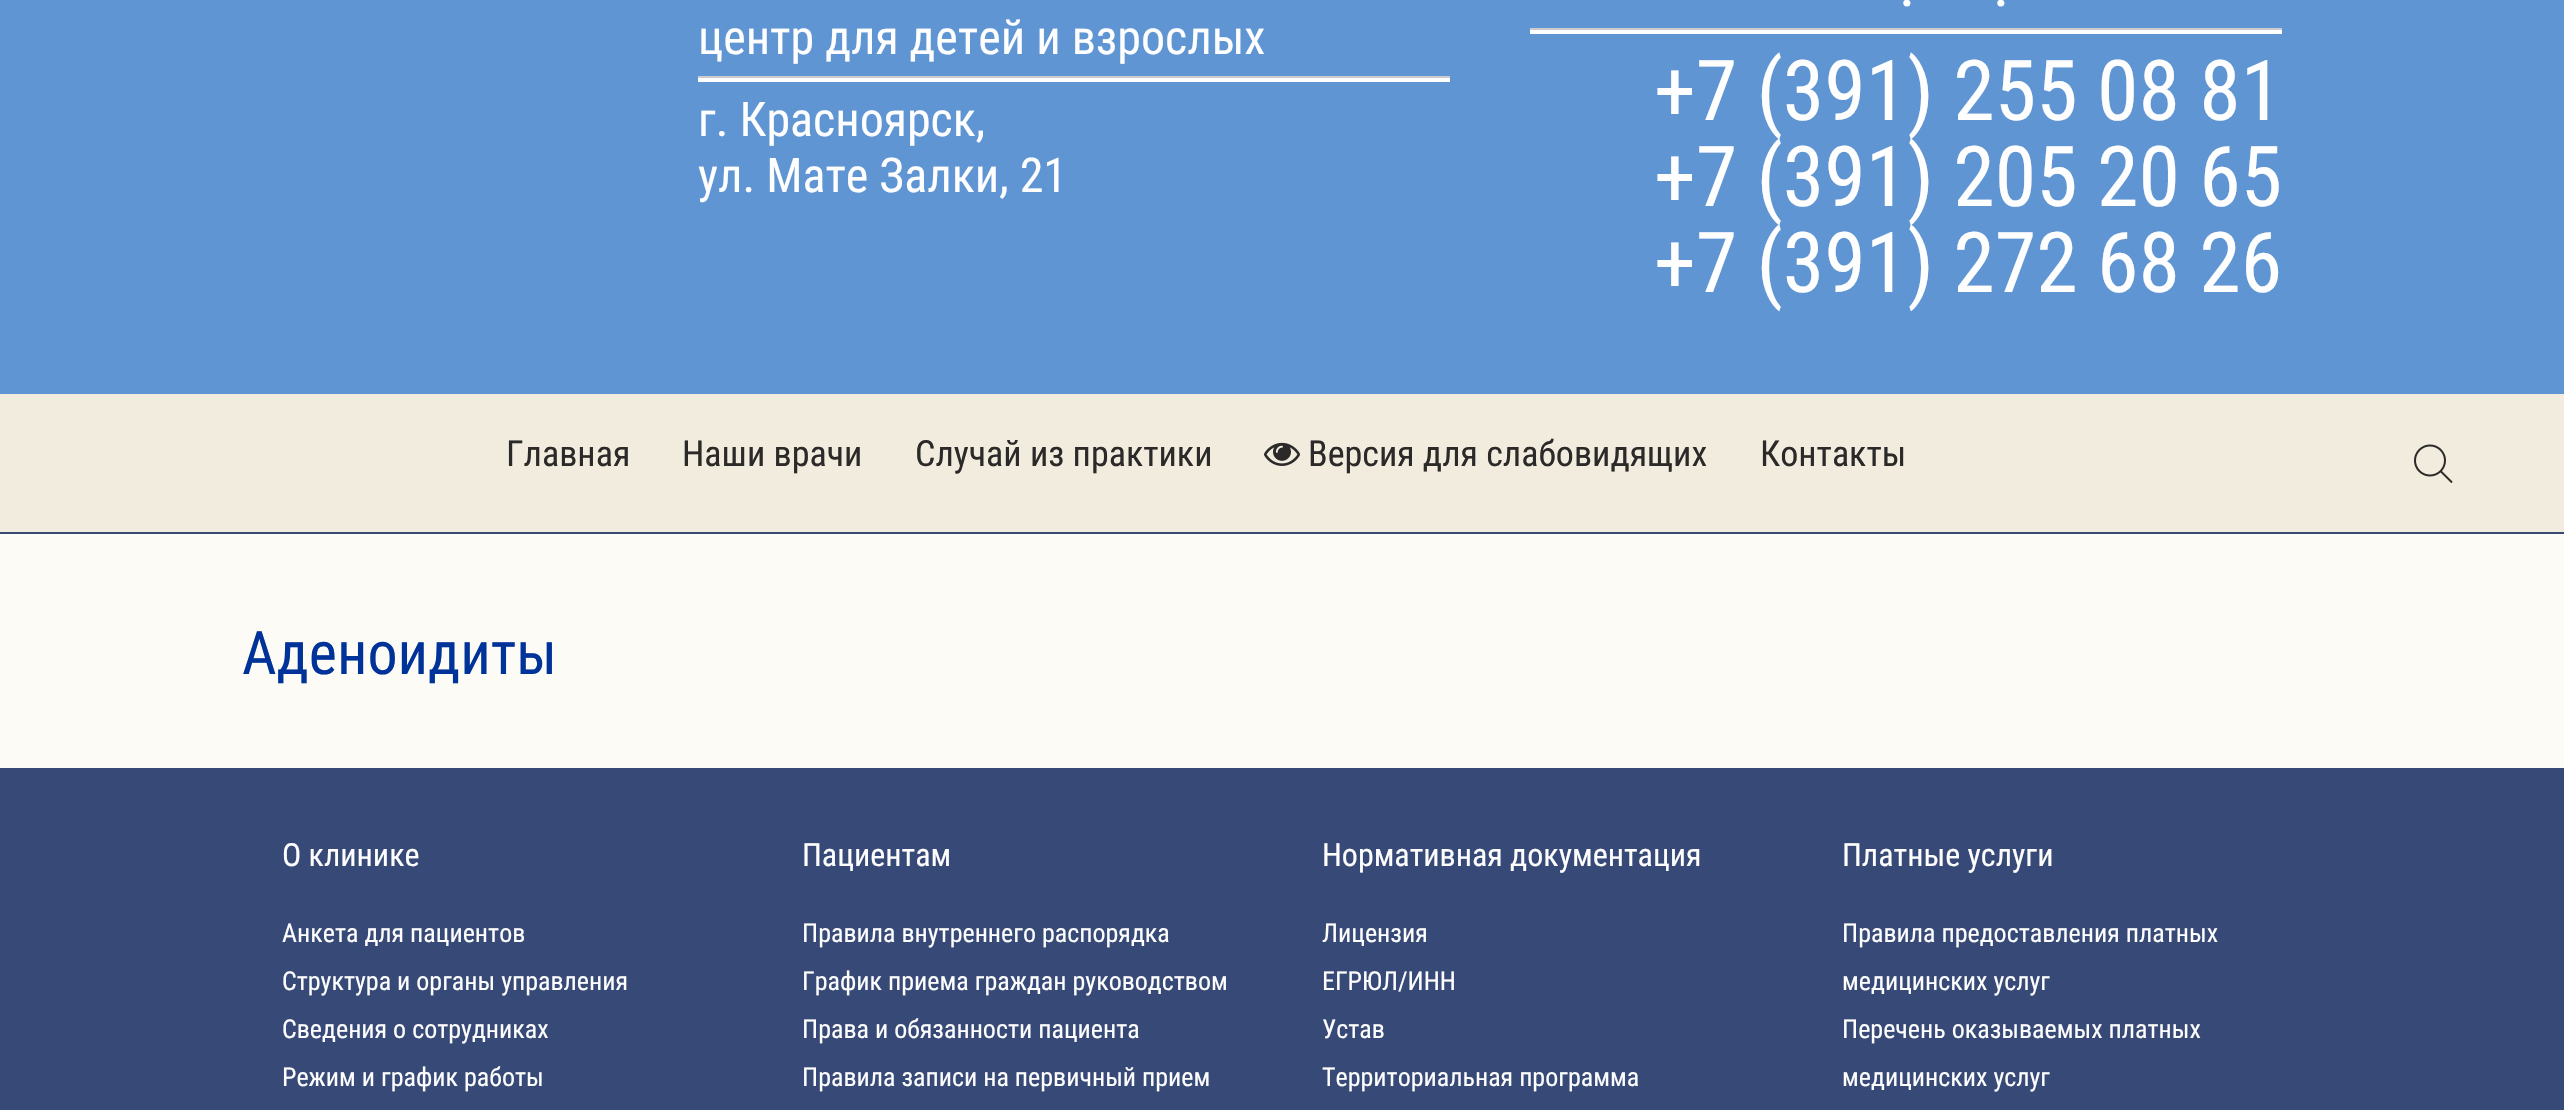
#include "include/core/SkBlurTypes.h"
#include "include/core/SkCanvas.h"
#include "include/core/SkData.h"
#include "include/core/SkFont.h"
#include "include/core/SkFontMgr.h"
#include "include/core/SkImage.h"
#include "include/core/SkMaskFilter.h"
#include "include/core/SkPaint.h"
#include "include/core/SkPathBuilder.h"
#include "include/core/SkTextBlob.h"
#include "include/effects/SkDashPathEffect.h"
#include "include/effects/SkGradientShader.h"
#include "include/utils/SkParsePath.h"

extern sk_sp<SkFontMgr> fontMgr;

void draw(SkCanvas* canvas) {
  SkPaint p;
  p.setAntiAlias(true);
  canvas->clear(SkColorSetRGB(253, 251, 245));
  p.setColor(SkColorSetRGB(95, 149, 211));
  canvas->drawRect(SkRect::MakeLTRB(0, 0, 2564, 394), p);
  p.setColor(SK_ColorWHITE);
  canvas->drawRect(SkRect::MakeLTRB(698, 78, 1450, 82), p);
  p.setColor(SkColorSetRGB(204, 204, 204));
  canvas->drawRect(SkRect::MakeLTRB(698, 76, 1450, 78), p);
  p.setColor(SK_ColorWHITE);
  canvas->drawRect(SkRect::MakeLTRB(1530, 30, 2282, 34), p);
  p.setColor(SkColorSetRGB(204, 204, 204));
  canvas->drawRect(SkRect::MakeLTRB(1530, 28, 2282, 30), p);
  p.setColor(SkColorSetRGB(241, 236, 222));
  canvas->drawRect(SkRect::MakeLTRB(0, 394, 2564, 532), p);
  p.setColor(SkColorSetRGB(57, 73, 119));
  canvas->drawRect(SkRect::MakeLTRB(0, 532, 2564, 534), p);
  canvas->drawImageRect(SkImages::DeferredFromEncodedData(SkData::MakeFromFileName("images/1.png")), SkRect::MakeLTRB(1264, 442, 1300, 466), SkSamplingOptions());
  canvas->drawImageRect(SkImages::DeferredFromEncodedData(SkData::MakeFromFileName("images/2.png")), SkRect::MakeLTRB(2414, 444, 2453, 484), SkSamplingOptions());
  p.setColor(SkColorSetRGB(55, 73, 119));
  canvas->drawRect(SkRect::MakeLTRB(0, 768, 2564, 1110), p);
  SkFont font1(fontMgr->matchFamilyStyle("Roboto Condensed", SkFontStyle::Normal()), 48);
  font1.setSubpixel(true);
  p.setColor(SkColorSetRGB(254, 254, 254));
  canvas->drawString("центр для детей и взрослых", 698, 54, font1, p);
  canvas->drawString("г. Красноярск,", 698, 136, font1, p);
  canvas->drawString("ул. Мате Залки, 21", 698, 192, font1, p);
  SkFont font2(fontMgr->matchFamilyStyle("Roboto Condensed", SkFontStyle::Normal()), 62);
  font2.setSubpixel(true);
  canvas->drawString(".", 1899, 6, font2, p);
  canvas->drawString(".", 1993, 6, font2, p);
  SkFont font3(fontMgr->matchFamilyStyle("Roboto Condensed", SkFontStyle::Normal()), 84);
  font3.setSubpixel(true);
  canvas->drawString("+7 (391) 255 08 81", 1654, 120, font3, p);
  canvas->drawString("+7 (391) 205 20 65", 1654, 206, font3, p);
  canvas->drawString("+7 (391) 272 68 26", 1654, 292, font3, p);
  SkFont font4(fontMgr->matchFamilyStyle("Roboto Condensed", SkFontStyle::Normal()), 36);
  font4.setSubpixel(true);
  p.setColor(SkColorSetRGB(43, 42, 41));
  canvas->drawString("Главная", 506, 466, font4, p);
  canvas->drawString("Наши врачи", 682, 466, font4, p);
  canvas->drawString("Случай из практики", 915, 466, font4, p);
  canvas->drawString("Версия для слабовидящих", 1308, 466, font4, p);
  canvas->drawString("Контакты", 1760, 466, font4, p);
  SkFont font5(fontMgr->matchFamilyStyle("Roboto Condensed", SkFontStyle::Normal()), 60);
  font5.setSubpixel(true);
  p.setColor(SkColorSetRGB(0, 51, 153));
  canvas->drawString("Аденоидиты", 242, 674, font5, p);
  SkFont font6(fontMgr->matchFamilyStyle("Roboto Condensed", SkFontStyle::Normal()), 32);
  font6.setSubpixel(true);
  p.setColor(SkColorSetRGB(254, 254, 254));
  canvas->drawString("О клинике", 282, 866, font6, p);
  SkFont font7(fontMgr->matchFamilyStyle("Roboto Condensed", SkFontStyle::Normal()), 26);
  font7.setSubpixel(true);
  canvas->drawString("Анкета для пациентов", 282, 942, font7, p);
  canvas->drawString("Структура и органы управления", 282, 990, font7, p);
  canvas->drawString("Сведения о сотрудниках", 282, 1038, font7, p);
  canvas->drawString("Режим и график работы", 282, 1086, font7, p);
  canvas->drawString("Пациентам", 802, 866, font6, p);
  canvas->drawString("Правила внутреннего распорядка", 802, 942, font7, p);
  canvas->drawString("График приема граждан руководством", 802, 990, font7, p);
  canvas->drawString("Права и обязанности пациента", 802, 1038, font7, p);
  canvas->drawString("Правила записи на первичный прием", 802, 1086, font7, p);
  canvas->drawString("Нормативная документация", 1322, 866, font6, p);
  canvas->drawString("Лицензия", 1322, 942, font7, p);
  canvas->drawString("ЕГРЮЛ/ИНН", 1322, 990, font7, p);
  canvas->drawString("Устав", 1322, 1038, font7, p);
  canvas->drawString("Территориальная программа", 1322, 1086, font7, p);
  canvas->drawString("Платные услуги", 1842, 866, font6, p);
  canvas->drawString("Правила предоставления платных", 1842, 942, font7, p);
  canvas->drawString("медицинских услуг", 1842, 990, font7, p);
  canvas->drawString("Перечень оказываемых платных", 1842, 1038, font7, p);
  canvas->drawString("медицинских услуг", 1842, 1086, font7, p);
}
